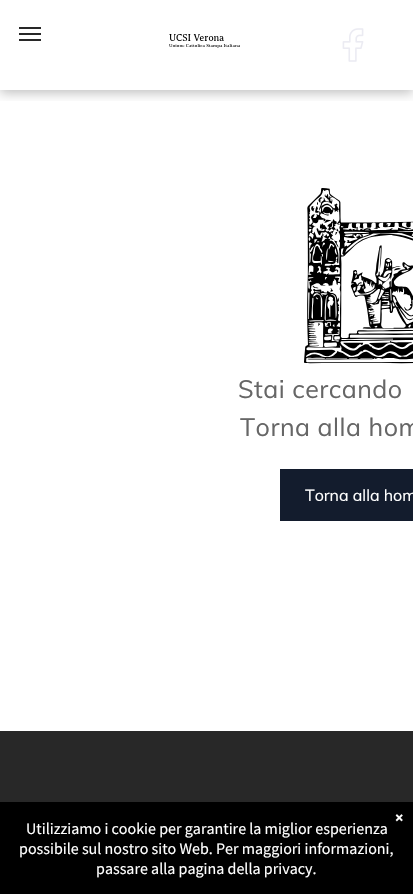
#include "include/core/SkBlurTypes.h"
#include "include/core/SkCanvas.h"
#include "include/core/SkData.h"
#include "include/core/SkFont.h"
#include "include/core/SkFontMgr.h"
#include "include/core/SkImage.h"
#include "include/core/SkMaskFilter.h"
#include "include/core/SkPaint.h"
#include "include/core/SkPathBuilder.h"
#include "include/core/SkTextBlob.h"
#include "include/effects/SkDashPathEffect.h"
#include "include/effects/SkGradientShader.h"
#include "include/utils/SkParsePath.h"

extern sk_sp<SkFontMgr> fontMgr;

void draw(SkCanvas* canvas) {
  SkPaint p;
  p.setAntiAlias(true);
  auto spacedText = [&](const char* s, float x, float y, const SkFont& font, const SkPaint& ink, float letter, float word) {
    std::vector<SkGlyphID> glyphs(font.countText(s, strlen(s), SkTextEncoding::kUTF8));
    std::vector<float> xs(glyphs.size());
    font.textToGlyphs(s, strlen(s), SkTextEncoding::kUTF8, glyphs);
    font.getXPos(glyphs, xs, x);
    float extra = 0;
    for (size_t i = 0; i < glyphs.size(); i++) {
      xs[i] += extra;
      extra += letter + word * (glyphs[i] == font.unicharToGlyph(' '));
    }
    canvas->drawTextBlob(SkTextBlob::MakeFromPosHGlyphs(glyphs, xs, y, font), 0, 0, ink);
  };
  canvas->clear(SK_ColorWHITE);
  canvas->save();
  canvas->clipRect(SkRect::MakeLTRB(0, 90, 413, 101));
  p.setColor(SkColorSetARGB(64, 0, 0, 0));
  p.setMaskFilter(SkMaskFilter::MakeBlur(kNormal_SkBlurStyle, 5.5f));
  canvas->drawRect(SkRect::MakeLTRB(0, 3, 413, 93), p);
  p.setMaskFilter(nullptr);
  canvas->restore();
  canvas->drawImageRect(SkImages::DeferredFromEncodedData(SkData::MakeFromFileName("images/1.png")), SkRect::MakeLTRB(169, 34, 240, 48), SkSamplingOptions());
  canvas->drawImageRect(SkImages::DeferredFromEncodedData(SkData::MakeFromFileName("images/2.png")), SkRect::MakeLTRB(342, 28, 364, 62), SkSamplingOptions());
  p.setColor(SkColorSetRGB(40, 40, 40));
  canvas->drawRect(SkRect::MakeLTRB(19, 27, 41, 29), p);
  canvas->drawRect(SkRect::MakeLTRB(19, 33, 41, 35), p);
  canvas->drawRect(SkRect::MakeLTRB(19, 39, 41, 41), p);
  canvas->drawImageRect(SkImages::DeferredFromEncodedData(SkData::MakeFromFileName("images/3.png")), SkRect::MakeLTRB(304, 188, 413, 364), SkSamplingOptions());
  p.setColor(SkColorSetRGB(19, 28, 45));
  canvas->drawRect(SkRect::MakeLTRB(280, 469, 413, 521), p);
  p.setColor(SkColorSetRGB(40, 40, 40));
  canvas->drawRect(SkRect::MakeLTRB(0, 731, 413, 802), p);
  p.setColor(SK_ColorBLACK);
  canvas->drawRect(SkRect::MakeLTRB(0, 802, 413, 894), p);
  SkFont font1(fontMgr->matchFamilyStyle("Muli", SkFontStyle::Normal()), 25);
  font1.setSubpixel(true);
  p.setColor(SkColorSetRGB(102, 102, 102));
  spacedText("Stai cercando", 238, 398, font1, p, 0.5f, 0);
  spacedText("Torna alla hom", 240, 436, font1, p, 0.5f, 0);
  SkFont font2(fontMgr->matchFamilyStyle("Muli", SkFontStyle::Normal()), 16);
  font2.setSubpixel(true);
  p.setColor(SK_ColorWHITE);
  canvas->drawString("Torna alla hom", 305, 501, font2, p);
  SkFont font3(fontMgr->matchFamilyStyle("Source Sans Pro", SkFontStyle::Bold()), 16);
  font3.setSubpixel(true);
  canvas->drawString("×", 395, 823, font3, p);
  SkFont font4(fontMgr->matchFamilyStyle("Source Sans Pro", SkFontStyle::Normal()), 16);
  font4.setSubpixel(true);
  canvas->drawString("Utilizziamo i cookie per garantire la miglior esperienza", 26, 834, font4, p);
  canvas->drawString("possibile sul nostro sito Web. Per maggiori informazioni,", 19, 854, font4, p);
  canvas->drawString("passare alla pagina della privacy.", 96, 874, font4, p);
}
